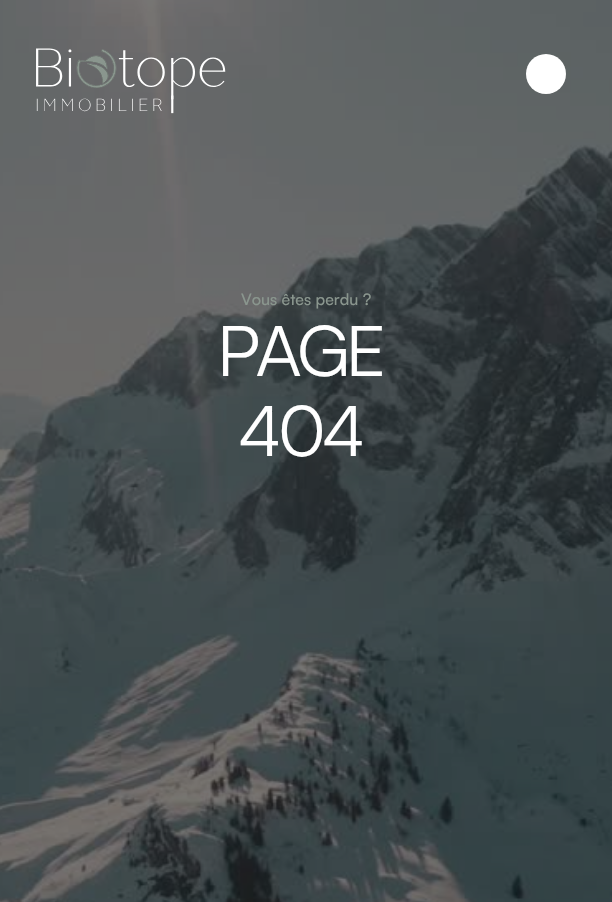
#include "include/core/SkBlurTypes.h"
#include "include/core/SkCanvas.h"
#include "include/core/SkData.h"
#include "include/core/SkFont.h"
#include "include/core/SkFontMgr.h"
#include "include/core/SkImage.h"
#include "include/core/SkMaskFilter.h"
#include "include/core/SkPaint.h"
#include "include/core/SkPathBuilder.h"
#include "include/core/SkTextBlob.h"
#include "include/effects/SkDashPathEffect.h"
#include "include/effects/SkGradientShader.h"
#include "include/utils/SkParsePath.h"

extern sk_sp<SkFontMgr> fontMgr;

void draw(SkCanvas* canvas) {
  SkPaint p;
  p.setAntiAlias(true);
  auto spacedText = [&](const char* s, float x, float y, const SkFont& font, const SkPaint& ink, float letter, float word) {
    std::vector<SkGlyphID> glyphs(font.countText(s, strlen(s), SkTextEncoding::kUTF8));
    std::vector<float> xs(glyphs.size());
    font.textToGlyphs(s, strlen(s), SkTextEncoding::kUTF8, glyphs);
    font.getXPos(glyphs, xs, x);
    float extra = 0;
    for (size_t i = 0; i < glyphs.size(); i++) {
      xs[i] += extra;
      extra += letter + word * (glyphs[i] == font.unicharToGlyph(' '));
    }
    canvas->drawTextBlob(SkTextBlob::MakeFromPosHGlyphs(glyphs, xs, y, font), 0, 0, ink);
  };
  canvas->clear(SK_ColorWHITE);
  canvas->drawImageRect(SkImages::DeferredFromEncodedData(SkData::MakeFromFileName("images/1.png")), SkRect::MakeLTRB(0, 0, 612, 902), SkSamplingOptions());
  canvas->drawImageRect(SkImages::DeferredFromEncodedData(SkData::MakeFromFileName("images/2.png")), SkRect::MakeLTRB(36, 48, 226, 114), SkSamplingOptions());
  p.setColor(SK_ColorWHITE);
  canvas->drawCircle(546, 74, 20, p);
  SkFont font1(fontMgr->matchFamilyStyle("Satoshi", SkFontStyle(500, SkFontStyle::kNormal_Width, SkFontStyle::kUpright_Slant)), 16);
  font1.setSubpixel(true);
  p.setColor(SkColorSetRGB(138, 150, 142));
  canvas->drawString("Vous êtes perdu ?", 241, 305, font1, p);
  SkFont font2(fontMgr->matchFamilyStyle("Satoshi", SkFontStyle::Normal()), 70);
  font2.setSubpixel(true);
  p.setColor(SK_ColorWHITE);
  spacedText("PAGE", 217, 376, font2, p, -4, 0);
  spacedText("404", 238, 456, font2, p, -4, 0);
}
